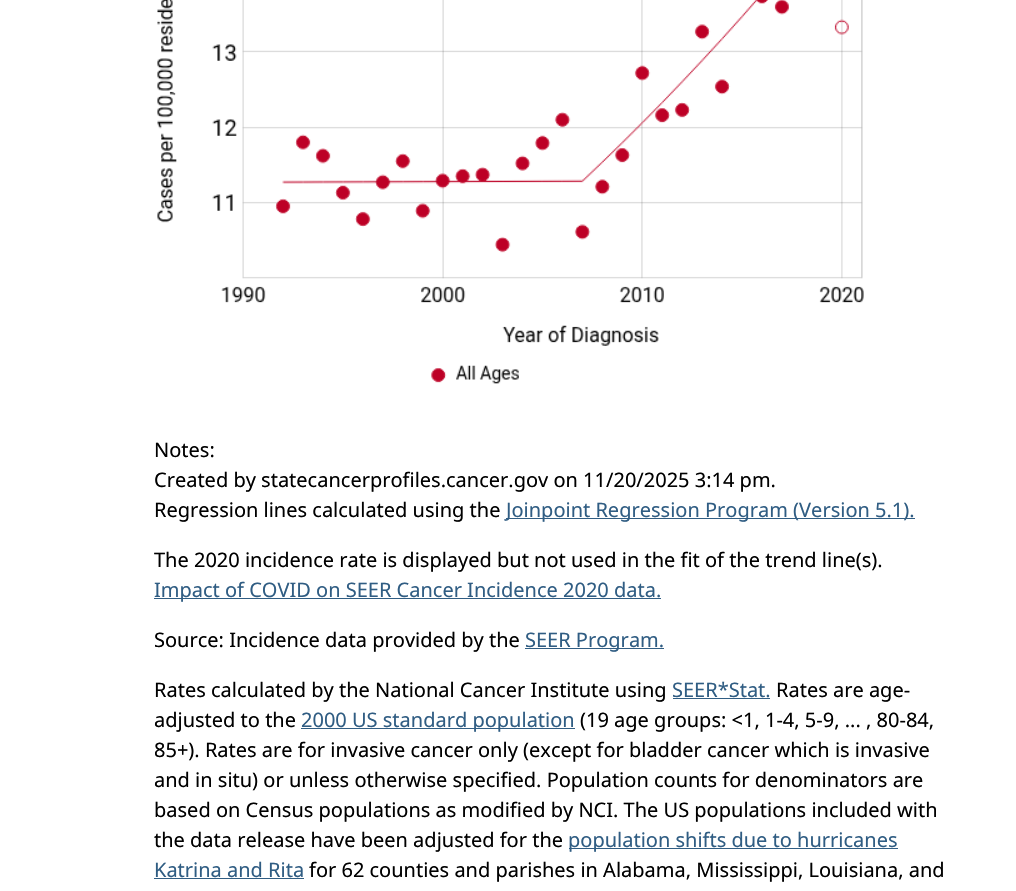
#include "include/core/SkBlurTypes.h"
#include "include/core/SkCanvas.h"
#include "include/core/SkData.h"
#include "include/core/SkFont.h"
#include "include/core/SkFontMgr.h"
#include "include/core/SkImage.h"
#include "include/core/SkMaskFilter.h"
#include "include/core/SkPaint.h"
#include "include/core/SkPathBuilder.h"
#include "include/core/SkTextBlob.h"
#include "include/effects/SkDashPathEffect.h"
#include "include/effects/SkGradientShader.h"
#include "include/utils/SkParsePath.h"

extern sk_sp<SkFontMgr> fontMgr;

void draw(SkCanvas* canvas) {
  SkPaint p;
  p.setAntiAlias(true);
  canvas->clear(SK_ColorWHITE);
  canvas->drawImageRect(SkImages::DeferredFromEncodedData(SkData::MakeFromFileName("images/1.png")), SkRect::MakeLTRB(157, 0, 864, 346), SkSamplingOptions());
  canvas->drawImageRect(SkImages::DeferredFromEncodedData(SkData::MakeFromFileName("images/2.png")), SkRect::MakeLTRB(431, 365, 519, 384), SkSamplingOptions());
  p.setColor(SkColorSetRGB(48, 93, 131));
  canvas->drawRect(SkRect::MakeLTRB(506, 518, 915, 519), p);
  canvas->drawRect(SkRect::MakeLTRB(154, 598, 661, 599), p);
  canvas->drawRect(SkRect::MakeLTRB(525, 648, 664, 649), p);
  canvas->drawRect(SkRect::MakeLTRB(673, 698, 770, 699), p);
  canvas->drawRect(SkRect::MakeLTRB(301, 728, 575, 729), p);
  canvas->drawRect(SkRect::MakeLTRB(569, 848, 898, 849), p);
  canvas->drawRect(SkRect::MakeLTRB(154, 878, 304, 879), p);
  SkFont font1(fontMgr->matchFamilyStyle("Noto Sans", SkFontStyle::Normal()), 20);
  font1.setSubpixel(true);
  p.setColor(SK_ColorBLACK);
  canvas->drawString("Notes:", 154, 457, font1, p);
  canvas->drawString("Created by statecancerprofiles.cancer.gov on 11/20/2025 3:14 pm.", 154, 487, font1, p);
  canvas->drawString("Regression lines calculated using the", 154, 517, font1, p);
  p.setColor(SkColorSetRGB(48, 93, 131));
  canvas->drawString("Joinpoint Regression Program (Version 5.1).", 506, 517, font1, p);
  p.setColor(SK_ColorBLACK);
  canvas->drawString("The 2020 incidence rate is displayed but not used in the fit of the trend line(s).", 154, 567, font1, p);
  p.setColor(SkColorSetRGB(48, 93, 131));
  canvas->drawString("Impact of COVID on SEER Cancer Incidence 2020 data.", 154, 597, font1, p);
  p.setColor(SK_ColorBLACK);
  canvas->drawString("Source: Incidence data provided by the", 154, 647, font1, p);
  p.setColor(SkColorSetRGB(48, 93, 131));
  canvas->drawString("SEER Program.", 525, 647, font1, p);
  p.setColor(SK_ColorBLACK);
  canvas->drawString("Rates calculated by the National Cancer Institute using", 154, 697, font1, p);
  p.setColor(SkColorSetRGB(48, 93, 131));
  canvas->drawString("SEER*Stat.", 672, 697, font1, p);
  p.setColor(SK_ColorBLACK);
  canvas->drawString("Rates are age-", 776, 697, font1, p);
  canvas->drawString("adjusted to the", 154, 727, font1, p);
  p.setColor(SkColorSetRGB(48, 93, 131));
  canvas->drawString("2000 US standard population", 301, 727, font1, p);
  p.setColor(SK_ColorBLACK);
  canvas->drawString("(19 age groups: <1, 1-4, 5-9, ... , 80-84,", 580, 727, font1, p);
  canvas->drawString("85+). Rates are for invasive cancer only (except for bladder cancer which is invasive", 154, 757, font1, p);
  canvas->drawString("and in situ) or unless otherwise specified. Population counts for denominators are", 154, 787, font1, p);
  canvas->drawString("based on Census populations as modified by NCI. The US populations included with", 154, 817, font1, p);
  canvas->drawString("the data release have been adjusted for the", 154, 847, font1, p);
  p.setColor(SkColorSetRGB(48, 93, 131));
  canvas->drawString("population shifts due to hurricanes", 568, 847, font1, p);
  canvas->drawString("Katrina and Rita", 154, 877, font1, p);
  p.setColor(SK_ColorBLACK);
  canvas->drawString("for 62 counties and parishes in Alabama, Mississippi, Louisiana, and", 309, 877, font1, p);
}
